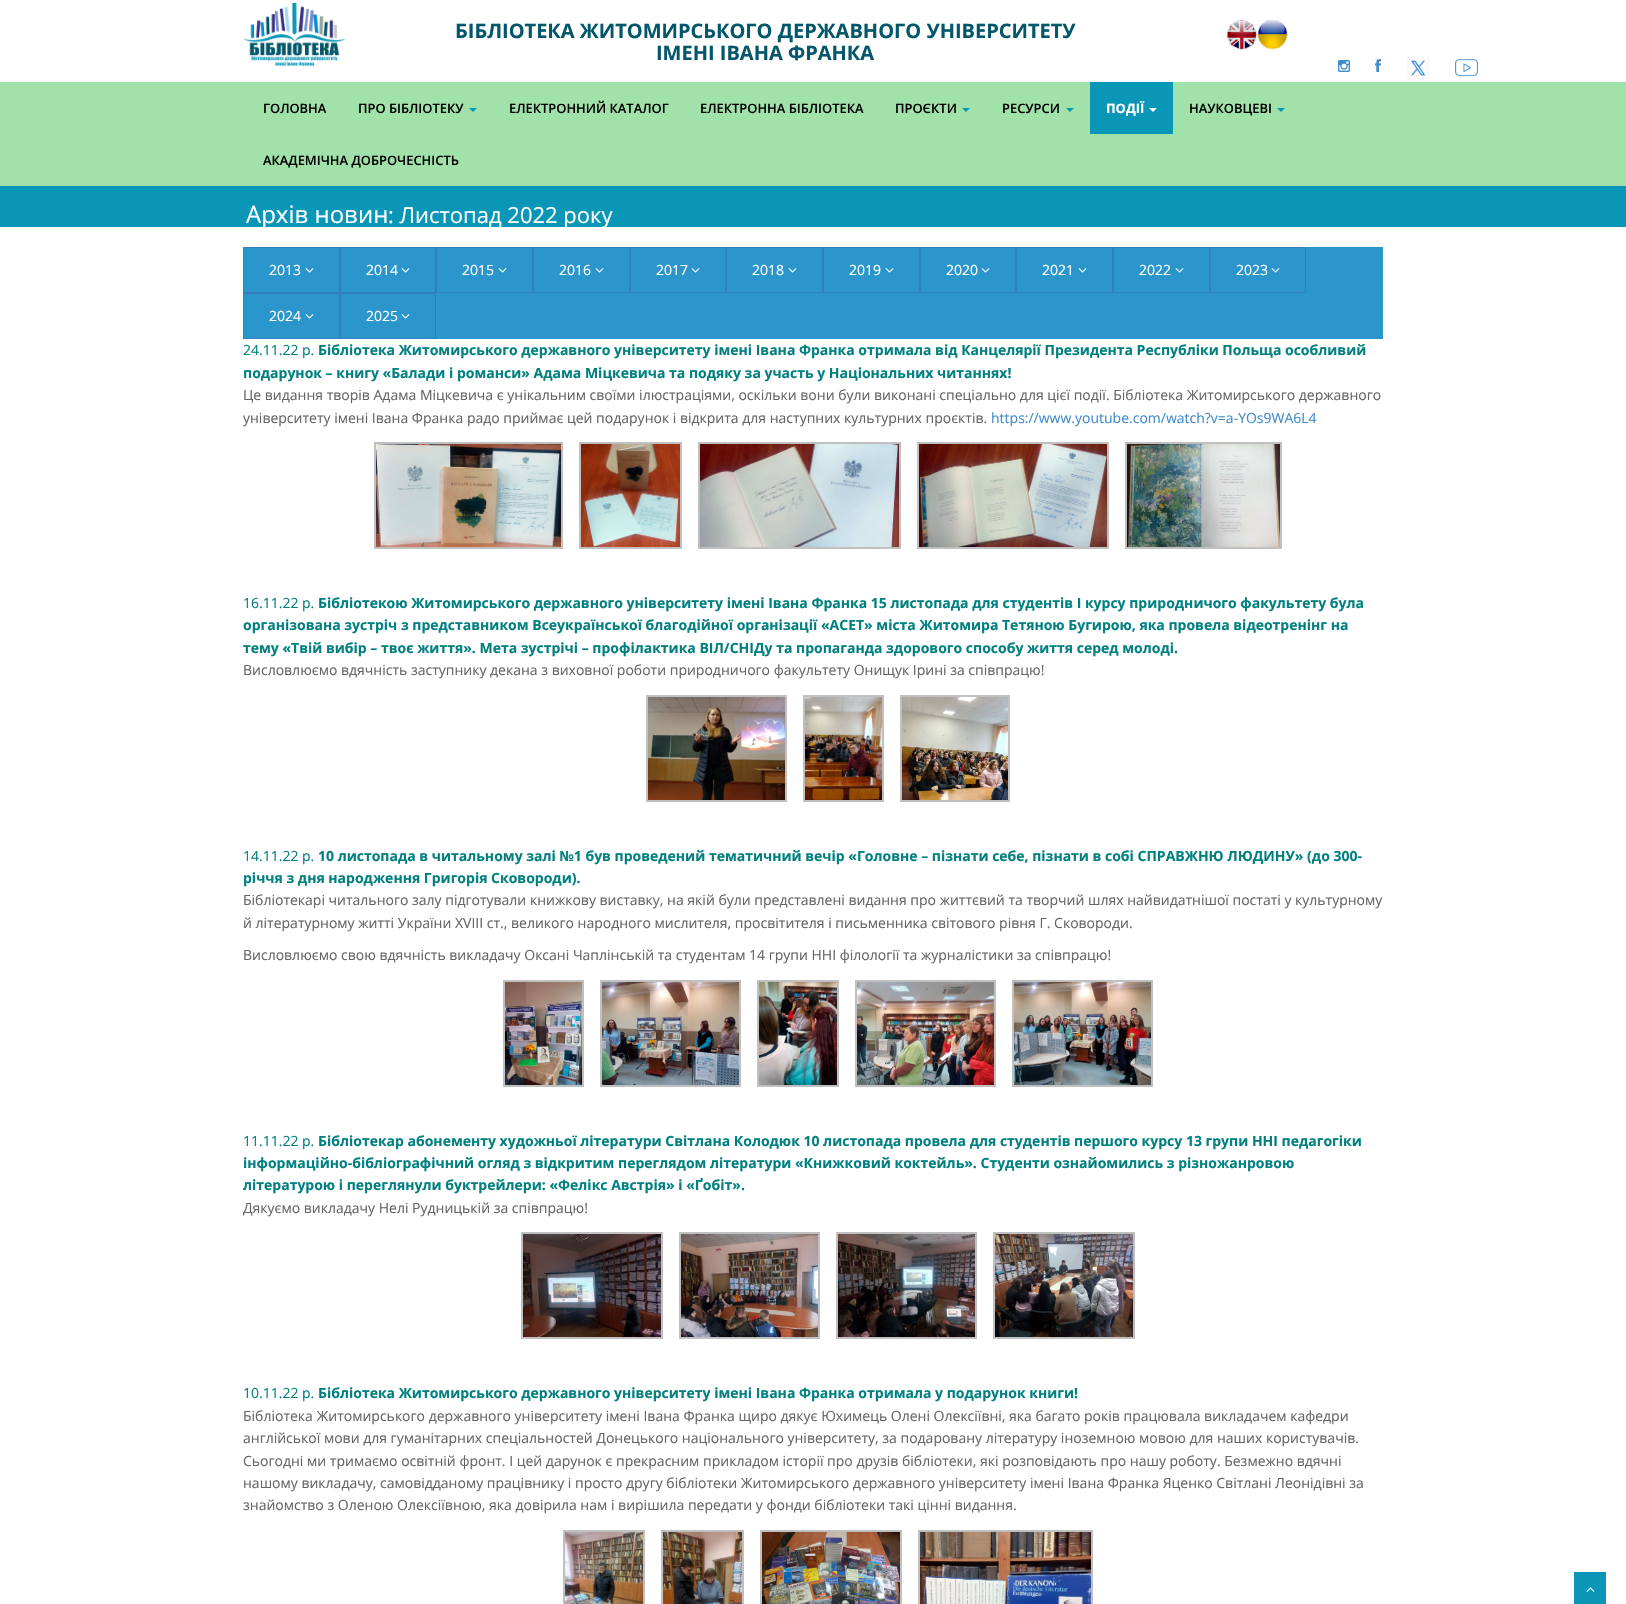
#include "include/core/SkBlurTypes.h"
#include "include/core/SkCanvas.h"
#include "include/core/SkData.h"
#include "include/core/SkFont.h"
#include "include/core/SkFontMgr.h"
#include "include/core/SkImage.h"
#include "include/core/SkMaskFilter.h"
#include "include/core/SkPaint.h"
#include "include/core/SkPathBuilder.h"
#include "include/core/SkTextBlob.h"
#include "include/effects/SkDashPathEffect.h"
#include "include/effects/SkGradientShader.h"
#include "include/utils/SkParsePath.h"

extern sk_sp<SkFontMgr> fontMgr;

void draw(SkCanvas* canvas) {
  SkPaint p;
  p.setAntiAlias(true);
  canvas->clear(SK_ColorWHITE);
  canvas->drawImageRect(SkImages::DeferredFromEncodedData(SkData::MakeFromFileName("images/1.png")), SkRect::MakeLTRB(243, 3, 346, 66), SkSamplingOptions());
  canvas->drawImageRect(SkImages::DeferredFromEncodedData(SkData::MakeFromFileName("images/2.png")), SkRect::MakeLTRB(1226, 19, 1257, 50), SkSamplingOptions());
  canvas->drawImageRect(SkImages::DeferredFromEncodedData(SkData::MakeFromFileName("images/3.png")), SkRect::MakeLTRB(1257, 19, 1288, 50), SkSamplingOptions());
  canvas->drawImageRect(SkImages::DeferredFromEncodedData(SkData::MakeFromFileName("images/4.png")), SkRect::MakeLTRB(1338, 60, 1350, 72), SkSamplingOptions());
  canvas->drawImageRect(SkImages::DeferredFromEncodedData(SkData::MakeFromFileName("images/5.png")), SkRect::MakeLTRB(1375, 59, 1381, 72), SkSamplingOptions());
  canvas->drawImageRect(SkImages::DeferredFromEncodedData(SkData::MakeFromFileName("images/6.png")), SkRect::MakeLTRB(1406, 56, 1430, 79), SkSamplingOptions());
  canvas->drawImageRect(SkImages::DeferredFromEncodedData(SkData::MakeFromFileName("images/7.png")), SkRect::MakeLTRB(1455, 59, 1478, 76), SkSamplingOptions());
  p.setColor(SkColorSetRGB(161, 225, 170));
  canvas->drawRect(SkRect::MakeLTRB(0, 82, 1626, 186), p);
  p.setColor(SkColorSetRGB(10, 151, 183));
  canvas->drawPath(SkPathBuilder().moveTo(469, 108).lineTo(477, 108).lineTo(473, 112).close().detach(), p);
  canvas->drawPath(SkPathBuilder().moveTo(962, 108).lineTo(970, 108).lineTo(966, 112).close().detach(), p);
  canvas->drawPath(SkPathBuilder().moveTo(1066, 108).lineTo(1074, 108).lineTo(1070, 112).close().detach(), p);
  canvas->drawRect(SkRect::MakeLTRB(1090, 82, 1173, 134), p);
  p.setColor(SK_ColorWHITE);
  canvas->drawPath(SkPathBuilder().moveTo(1149, 108).lineTo(1157, 108).lineTo(1153, 112).close().detach(), p);
  p.setColor(SkColorSetRGB(10, 151, 183));
  canvas->drawPath(SkPathBuilder().moveTo(1277, 108).lineTo(1285, 108).lineTo(1281, 112).close().detach(), p);
  canvas->drawRect(SkRect::MakeLTRB(0, 186, 1626, 227), p);
  p.setColor(SkColorSetRGB(43, 150, 204));
  canvas->drawRect(SkRect::MakeLTRB(244, 247, 1383, 339), p);
  p.setStyle(SkPaint::kStroke_Style);
  p.setStrokeWidth(1);
  p.setColor(SkColorSetRGB(53, 126, 189));
  canvas->drawRect(SkRect::MakeLTRB(243.5f, 247.5f, 339.5f, 292.5f), p);
  canvas->drawImageRect(SkImages::DeferredFromEncodedData(SkData::MakeFromFileName("images/8.png")), SkRect::MakeLTRB(305, 268, 314, 273), SkSamplingOptions());
  canvas->drawRect(SkRect::MakeLTRB(340.5f, 247.5f, 435.5f, 292.5f), p);
  canvas->drawImageRect(SkImages::DeferredFromEncodedData(SkData::MakeFromFileName("images/8.png")), SkRect::MakeLTRB(401, 268, 410, 273), SkSamplingOptions());
  canvas->drawRect(SkRect::MakeLTRB(436.5f, 247.5f, 532.5f, 292.5f), p);
  canvas->drawImageRect(SkImages::DeferredFromEncodedData(SkData::MakeFromFileName("images/8.png")), SkRect::MakeLTRB(498, 268, 507, 273), SkSamplingOptions());
  canvas->drawRect(SkRect::MakeLTRB(533.5f, 247.5f, 629.5f, 292.5f), p);
  canvas->drawImageRect(SkImages::DeferredFromEncodedData(SkData::MakeFromFileName("images/8.png")), SkRect::MakeLTRB(595, 268, 604, 273), SkSamplingOptions());
  canvas->drawRect(SkRect::MakeLTRB(630.5f, 247.5f, 725.5f, 292.5f), p);
  canvas->drawImageRect(SkImages::DeferredFromEncodedData(SkData::MakeFromFileName("images/8.png")), SkRect::MakeLTRB(691, 268, 700, 273), SkSamplingOptions());
  canvas->drawRect(SkRect::MakeLTRB(726.5f, 247.5f, 822.5f, 292.5f), p);
  canvas->drawImageRect(SkImages::DeferredFromEncodedData(SkData::MakeFromFileName("images/8.png")), SkRect::MakeLTRB(788, 268, 797, 273), SkSamplingOptions());
  canvas->drawRect(SkRect::MakeLTRB(823.5f, 247.5f, 919.5f, 292.5f), p);
  canvas->drawImageRect(SkImages::DeferredFromEncodedData(SkData::MakeFromFileName("images/8.png")), SkRect::MakeLTRB(885, 268, 894, 273), SkSamplingOptions());
  canvas->drawRect(SkRect::MakeLTRB(920.5f, 247.5f, 1015.5f, 292.5f), p);
  canvas->drawImageRect(SkImages::DeferredFromEncodedData(SkData::MakeFromFileName("images/8.png")), SkRect::MakeLTRB(981, 268, 990, 273), SkSamplingOptions());
  canvas->drawRect(SkRect::MakeLTRB(1016.5f, 247.5f, 1112.5f, 292.5f), p);
  canvas->drawImageRect(SkImages::DeferredFromEncodedData(SkData::MakeFromFileName("images/8.png")), SkRect::MakeLTRB(1078, 268, 1087, 273), SkSamplingOptions());
  canvas->drawRect(SkRect::MakeLTRB(1113.5f, 247.5f, 1209.5f, 292.5f), p);
  canvas->drawImageRect(SkImages::DeferredFromEncodedData(SkData::MakeFromFileName("images/8.png")), SkRect::MakeLTRB(1175, 268, 1184, 273), SkSamplingOptions());
  canvas->drawRect(SkRect::MakeLTRB(1210.5f, 247.5f, 1305.5f, 292.5f), p);
  canvas->drawImageRect(SkImages::DeferredFromEncodedData(SkData::MakeFromFileName("images/8.png")), SkRect::MakeLTRB(1271, 268, 1280, 273), SkSamplingOptions());
  canvas->drawRect(SkRect::MakeLTRB(243.5f, 293.5f, 339.5f, 338.5f), p);
  canvas->drawImageRect(SkImages::DeferredFromEncodedData(SkData::MakeFromFileName("images/8.png")), SkRect::MakeLTRB(305, 314, 314, 319), SkSamplingOptions());
  canvas->drawRect(SkRect::MakeLTRB(340.5f, 293.5f, 435.5f, 338.5f), p);
  canvas->drawImageRect(SkImages::DeferredFromEncodedData(SkData::MakeFromFileName("images/8.png")), SkRect::MakeLTRB(401, 314, 410, 319), SkSamplingOptions());
  p.setStrokeWidth(2);
  p.setColor(SkColorSetRGB(192, 192, 192));
  canvas->drawRect(SkRect::MakeLTRB(375, 443, 562, 548), p);
  canvas->drawImageRect(SkImages::DeferredFromEncodedData(SkData::MakeFromFileName("images/9.png")), SkRect::MakeLTRB(376, 444, 561, 547), SkSamplingOptions());
  canvas->drawRect(SkRect::MakeLTRB(580, 443, 681, 548), p);
  canvas->drawImageRect(SkImages::DeferredFromEncodedData(SkData::MakeFromFileName("images/10.png")), SkRect::MakeLTRB(581, 444, 680, 547), SkSamplingOptions());
  canvas->drawRect(SkRect::MakeLTRB(699, 443, 900, 548), p);
  canvas->drawImageRect(SkImages::DeferredFromEncodedData(SkData::MakeFromFileName("images/11.png")), SkRect::MakeLTRB(700, 444, 899, 547), SkSamplingOptions());
  canvas->drawRect(SkRect::MakeLTRB(918, 443, 1108, 548), p);
  canvas->drawImageRect(SkImages::DeferredFromEncodedData(SkData::MakeFromFileName("images/12.png")), SkRect::MakeLTRB(919, 444, 1107, 547), SkSamplingOptions());
  canvas->drawRect(SkRect::MakeLTRB(1126, 443, 1281, 548), p);
  canvas->drawImageRect(SkImages::DeferredFromEncodedData(SkData::MakeFromFileName("images/13.png")), SkRect::MakeLTRB(1127, 444, 1280, 547), SkSamplingOptions());
  canvas->drawRect(SkRect::MakeLTRB(647, 696, 786, 801), p);
  canvas->drawImageRect(SkImages::DeferredFromEncodedData(SkData::MakeFromFileName("images/14.png")), SkRect::MakeLTRB(648, 697, 785, 800), SkSamplingOptions());
  canvas->drawRect(SkRect::MakeLTRB(804, 696, 883, 801), p);
  canvas->drawImageRect(SkImages::DeferredFromEncodedData(SkData::MakeFromFileName("images/15.png")), SkRect::MakeLTRB(805, 697, 882, 800), SkSamplingOptions());
  canvas->drawRect(SkRect::MakeLTRB(901, 696, 1009, 801), p);
  canvas->drawImageRect(SkImages::DeferredFromEncodedData(SkData::MakeFromFileName("images/16.png")), SkRect::MakeLTRB(902, 697, 1008, 800), SkSamplingOptions());
  canvas->drawRect(SkRect::MakeLTRB(504, 981, 583, 1086), p);
  canvas->drawImageRect(SkImages::DeferredFromEncodedData(SkData::MakeFromFileName("images/17.png")), SkRect::MakeLTRB(505, 982, 582, 1085), SkSamplingOptions());
  canvas->drawRect(SkRect::MakeLTRB(601, 981, 740, 1086), p);
  canvas->drawImageRect(SkImages::DeferredFromEncodedData(SkData::MakeFromFileName("images/18.png")), SkRect::MakeLTRB(602, 982, 739, 1085), SkSamplingOptions());
  canvas->drawRect(SkRect::MakeLTRB(758, 981, 838, 1086), p);
  canvas->drawImageRect(SkImages::DeferredFromEncodedData(SkData::MakeFromFileName("images/19.png")), SkRect::MakeLTRB(759, 982, 837, 1085), SkSamplingOptions());
  canvas->drawRect(SkRect::MakeLTRB(856, 981, 995, 1086), p);
  canvas->drawImageRect(SkImages::DeferredFromEncodedData(SkData::MakeFromFileName("images/20.png")), SkRect::MakeLTRB(857, 982, 994, 1085), SkSamplingOptions());
  canvas->drawRect(SkRect::MakeLTRB(1013, 981, 1152, 1086), p);
  canvas->drawImageRect(SkImages::DeferredFromEncodedData(SkData::MakeFromFileName("images/21.png")), SkRect::MakeLTRB(1014, 982, 1151, 1085), SkSamplingOptions());
  canvas->drawRect(SkRect::MakeLTRB(522, 1233, 662, 1338), p);
  canvas->drawImageRect(SkImages::DeferredFromEncodedData(SkData::MakeFromFileName("images/22.png")), SkRect::MakeLTRB(523, 1234, 661, 1337), SkSamplingOptions());
  canvas->drawRect(SkRect::MakeLTRB(680, 1233, 819, 1338), p);
  canvas->drawImageRect(SkImages::DeferredFromEncodedData(SkData::MakeFromFileName("images/23.png")), SkRect::MakeLTRB(681, 1234, 818, 1337), SkSamplingOptions());
  canvas->drawRect(SkRect::MakeLTRB(837, 1233, 976, 1338), p);
  canvas->drawImageRect(SkImages::DeferredFromEncodedData(SkData::MakeFromFileName("images/24.png")), SkRect::MakeLTRB(838, 1234, 975, 1337), SkSamplingOptions());
  canvas->drawRect(SkRect::MakeLTRB(994, 1233, 1134, 1338), p);
  canvas->drawImageRect(SkImages::DeferredFromEncodedData(SkData::MakeFromFileName("images/25.png")), SkRect::MakeLTRB(995, 1234, 1133, 1337), SkSamplingOptions());
  canvas->drawRect(SkRect::MakeLTRB(564, 1531, 644, 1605), p);
  canvas->drawImageRect(SkImages::DeferredFromEncodedData(SkData::MakeFromFileName("images/26.png")), SkRect::MakeLTRB(565, 1532, 643, 1604), SkSamplingOptions());
  canvas->drawRect(SkRect::MakeLTRB(662, 1531, 743, 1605), p);
  canvas->drawImageRect(SkImages::DeferredFromEncodedData(SkData::MakeFromFileName("images/27.png")), SkRect::MakeLTRB(663, 1532, 742, 1604), SkSamplingOptions());
  canvas->drawRect(SkRect::MakeLTRB(761, 1531, 901, 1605), p);
  canvas->drawImageRect(SkImages::DeferredFromEncodedData(SkData::MakeFromFileName("images/28.png")), SkRect::MakeLTRB(762, 1532, 900, 1604), SkSamplingOptions());
  canvas->drawRect(SkRect::MakeLTRB(919, 1531, 1092, 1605), p);
  canvas->drawImageRect(SkImages::DeferredFromEncodedData(SkData::MakeFromFileName("images/29.png")), SkRect::MakeLTRB(920, 1532, 1091, 1604), SkSamplingOptions());
  p.setStyle(SkPaint::kFill_Style);
  p.setColor(SkColorSetRGB(10, 151, 183));
  canvas->drawRect(SkRect::MakeLTRB(1574, 1572, 1606, 1604), p);
  canvas->drawImageRect(SkImages::DeferredFromEncodedData(SkData::MakeFromFileName("images/30.png")), SkRect::MakeLTRB(1586, 1587, 1595, 1592), SkSamplingOptions());
  SkFont font1(fontMgr->matchFamilyStyle("Open Sans", SkFontStyle::Bold()), 20);
  font1.setSubpixel(true);
  p.setColor(SkColorSetRGB(3, 87, 106));
  canvas->drawString("БІБЛІОТЕКА ЖИТОМИРСЬКОГО ДЕРЖАВНОГО УНІВЕРСИТЕТУ", 455, 38, font1, p);
  canvas->drawString("ІМЕНІ ІВАНА ФРАНКА", 656, 60, font1, p);
  SkFont font2(fontMgr->matchFamilyStyle("Open Sans", SkFontStyle(600, SkFontStyle::kNormal_Width, SkFontStyle::kUpright_Slant)), 12.9f);
  font2.setSubpixel(true);
  p.setColor(SK_ColorBLACK);
  canvas->drawString("ГОЛОВНА", 263, 113, font2, p);
  canvas->drawString("ПРО БІБЛІОТЕКУ", 358, 113, font2, p);
  canvas->drawString("ЕЛЕКТРОННИЙ КАТАЛОГ", 509, 113, font2, p);
  canvas->drawString("ЕЛЕКТРОННА БІБЛІОТЕКА", 700, 113, font2, p);
  canvas->drawString("ПРОЄКТИ", 895, 113, font2, p);
  canvas->drawString("РЕСУРСИ", 1002, 113, font2, p);
  SkFont font3(fontMgr->matchFamilyStyle("Open Sans", SkFontStyle::Bold()), 12.9f);
  font3.setSubpixel(true);
  p.setColor(SK_ColorWHITE);
  canvas->drawString("ПОДІЇ", 1106, 113, font3, p);
  p.setColor(SK_ColorBLACK);
  canvas->drawString("НАУКОВЦЕВІ", 1189, 113, font2, p);
  canvas->drawString("АКАДЕМІЧНА ДОБРОЧЕСНІСТЬ", 263, 165, font2, p);
  SkFont font4(fontMgr->matchFamilyStyle("Open Sans", SkFontStyle::Normal()), 24);
  font4.setSubpixel(true);
  p.setColor(SK_ColorWHITE);
  canvas->drawString("Архів новин", 246, 223, font4, p);
  SkFont font5(fontMgr->matchFamilyStyle("Open Sans", SkFontStyle::Normal()), 22);
  font5.setSubpixel(true);
  canvas->drawString(": Листопад 2022 року", 388, 223, font5, p);
  SkFont font6(fontMgr->matchFamilyStyle("Open Sans", SkFontStyle::Normal()), 14);
  font6.setSubpixel(true);
  canvas->drawString("2013", 269, 275, font6, p);
  canvas->drawString("2014", 366, 275, font6, p);
  canvas->drawString("2015", 462, 275, font6, p);
  canvas->drawString("2016", 559, 275, font6, p);
  canvas->drawString("2017", 656, 275, font6, p);
  canvas->drawString("2018", 752, 275, font6, p);
  canvas->drawString("2019", 849, 275, font6, p);
  canvas->drawString("2020", 946, 275, font6, p);
  canvas->drawString("2021", 1042, 275, font6, p);
  canvas->drawString("2022", 1139, 275, font6, p);
  canvas->drawString("2023", 1236, 275, font6, p);
  canvas->drawString("2024", 269, 321, font6, p);
  canvas->drawString("2025", 366, 321, font6, p);
  p.setColor(SkColorSetRGB(0, 128, 128));
  canvas->drawString("24.11.22 р.", 243, 355, font6, p);
  SkFont font7(fontMgr->matchFamilyStyle("Open Sans", SkFontStyle::Bold()), 14);
  font7.setSubpixel(true);
  canvas->drawString("Бібліотека Житомирського державного університету імені Івана Франка отримала від Канцелярії Президента Республіки Польща особливий", 318, 355, font7, p);
  canvas->drawString("подарунок – книгу «Балади і романси» Адама Міцкевича та подяку за участь у Національних читаннях!", 243, 378, font7, p);
  p.setColor(SkColorSetRGB(101, 101, 101));
  canvas->drawString("Це видання творів Адама Міцкевича є унікальним своїми ілюстраціями, оскільки вони були виконані спеціально для цієї події. Бібліотека Житомирського державного", 243, 400, font6, p);
  canvas->drawString("університету імені Івана Франка радо приймає цей подарунок і відкрита для наступних культурних проєктів.", 243, 423, font6, p);
  p.setColor(SkColorSetRGB(66, 139, 202));
  canvas->drawString("https://www.youtube.com/watch?v=a-YOs9WA6L4", 991, 423, font6, p);
  p.setColor(SkColorSetRGB(0, 128, 128));
  canvas->drawString("16.11.22 р.", 243, 608, font6, p);
  canvas->drawString("Бібліотекою Житомирського державного університету імені Івана Франка 15 листопада для студентів I курсу природничого факультету була", 318, 608, font7, p);
  canvas->drawString("організована зустріч з представником Всеукраїнської благодійної організації «АСЕТ» міста Житомира Тетяною Бугирою, яка провела відеотренінг на", 243, 630, font7, p);
  canvas->drawString("тему «Твій вибір – твоє життя». Мета зустрічі – профілактика ВІЛ/СНІДу та пропаганда здорового способу життя серед молоді.", 243, 653, font7, p);
  p.setColor(SkColorSetRGB(101, 101, 101));
  canvas->drawString("Висловлюємо вдячність заступнику декана з виховної роботи природничого факультету Онищук Ірині за співпрацю!", 243, 675, font6, p);
  p.setColor(SkColorSetRGB(0, 128, 128));
  canvas->drawString("14.11.22 р.", 243, 861, font6, p);
  canvas->drawString("10 листопада в читальному залі №1 був проведений тематичний вечір «Головне – пізнати себе, пізнати в собі СПРАВЖНЮ ЛЮДИНУ» (до 300-", 318, 861, font7, p);
  canvas->drawString("річчя з дня народження Григорія Сковороди).", 243, 883, font7, p);
  p.setColor(SkColorSetRGB(101, 101, 101));
  canvas->drawString("Бібліотекарі читального залу підготували книжкову виставку, на якій були представлені видання про життєвий та творчий шлях найвидатнішої постаті у культурному", 243, 905, font6, p);
  canvas->drawString("й літературному житті України XVIII ст., великого народного мислителя, просвітителя і письменника світового рівня Г. Сковороди.", 243, 928, font6, p);
  canvas->drawString("Висловлюємо свою вдячність викладачу Оксані Чаплінській та студентам 14 групи ННІ філології та журналістики за співпрацю!", 243, 960, font6, p);
  p.setColor(SkColorSetRGB(0, 128, 128));
  canvas->drawString("11.11.22 р.", 243, 1146, font6, p);
  canvas->drawString("Бібліотекар абонементу художньої літератури Світлана Колодюк 10 листопада провела для студентів першого курсу 13 групи ННІ педагогіки", 318, 1146, font7, p);
  canvas->drawString("інформаційно-бібліографічний огляд з відкритим переглядом літератури «Книжковий коктейль». Студенти ознайомились з різножанровою", 243, 1168, font7, p);
  canvas->drawString("літературою і переглянули буктрейлери: «Фелікс Австрія» і «Ґобіт».", 243, 1190, font7, p);
  p.setColor(SkColorSetRGB(101, 101, 101));
  canvas->drawString("Дякуємо викладачу Нелі Рудницькій за співпрацю!", 243, 1213, font6, p);
  p.setColor(SkColorSetRGB(0, 128, 128));
  canvas->drawString("10.11.22 р.", 243, 1398, font6, p);
  canvas->drawString("Бібліотека Житомирського державного університету імені Івана Франка отримала у подарунок книги!", 318, 1398, font7, p);
  p.setColor(SkColorSetRGB(101, 101, 101));
  canvas->drawString("Бібліотека Житомирського державного університету імені Івана Франка щиро дякує Юхимець Олені Олексіївні, яка багато років працювала викладачем кафедри", 243, 1421, font6, p);
  canvas->drawString("англійської мови для гуманітарних спеціальностей Донецького національного університету, за подаровану літературу іноземною мовою для наших користувачів.", 243, 1443, font6, p);
  canvas->drawString("Сьогодні ми тримаємо освітній фронт. І цей дарунок є прекрасним прикладом історії про друзів бібліотеки, які розповідають про нашу роботу. Безмежно вдячні", 243, 1466, font6, p);
  canvas->drawString("нашому викладачу, самовідданому працівнику і просто другу бібліотеки Житомирського державного університету імені Івана Франка Яценко Світлані Леонідівні за", 243, 1488, font6, p);
  canvas->drawString("знайомство з Оленою Олексіївною, яка довірила нам і вирішила передати у фонди бібліотеки такі цінні видання.", 243, 1510, font6, p);
}
